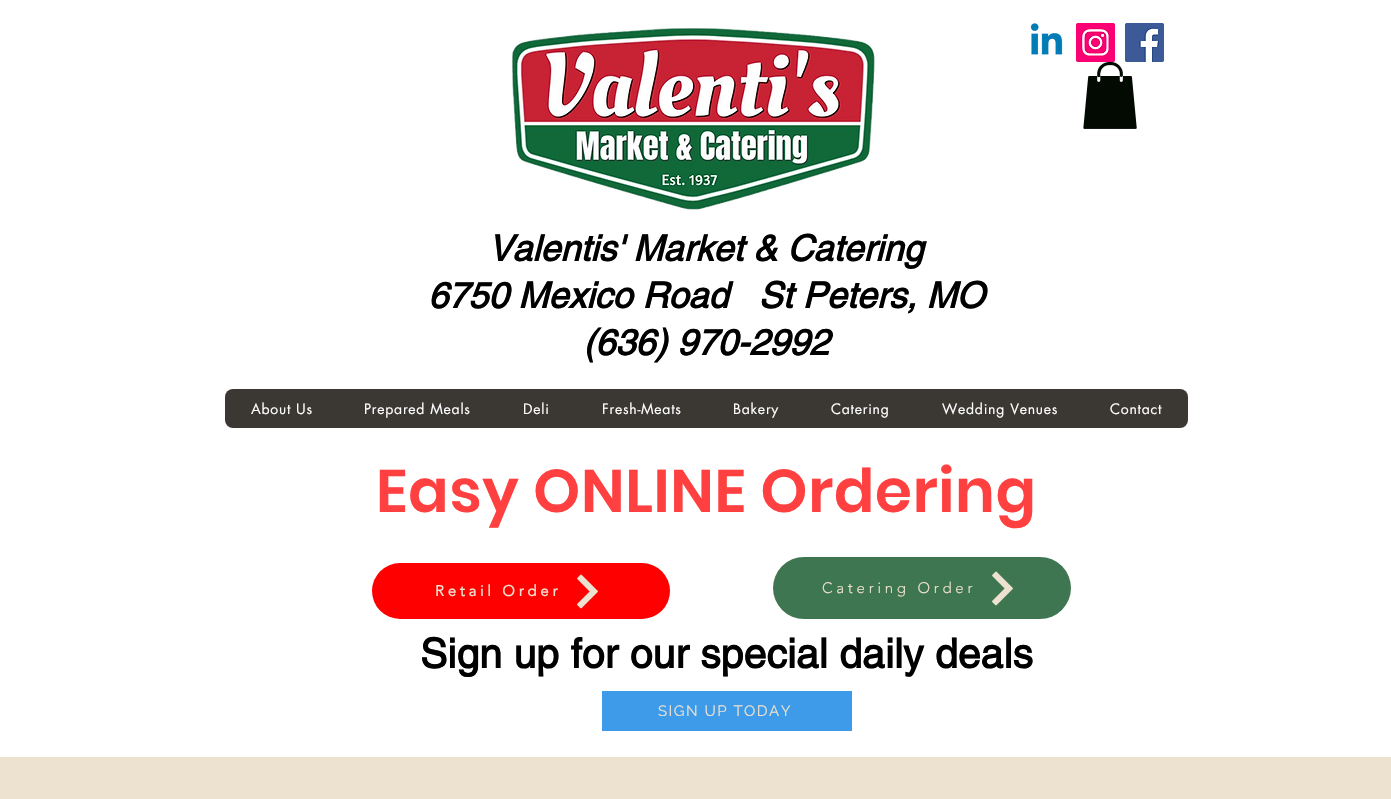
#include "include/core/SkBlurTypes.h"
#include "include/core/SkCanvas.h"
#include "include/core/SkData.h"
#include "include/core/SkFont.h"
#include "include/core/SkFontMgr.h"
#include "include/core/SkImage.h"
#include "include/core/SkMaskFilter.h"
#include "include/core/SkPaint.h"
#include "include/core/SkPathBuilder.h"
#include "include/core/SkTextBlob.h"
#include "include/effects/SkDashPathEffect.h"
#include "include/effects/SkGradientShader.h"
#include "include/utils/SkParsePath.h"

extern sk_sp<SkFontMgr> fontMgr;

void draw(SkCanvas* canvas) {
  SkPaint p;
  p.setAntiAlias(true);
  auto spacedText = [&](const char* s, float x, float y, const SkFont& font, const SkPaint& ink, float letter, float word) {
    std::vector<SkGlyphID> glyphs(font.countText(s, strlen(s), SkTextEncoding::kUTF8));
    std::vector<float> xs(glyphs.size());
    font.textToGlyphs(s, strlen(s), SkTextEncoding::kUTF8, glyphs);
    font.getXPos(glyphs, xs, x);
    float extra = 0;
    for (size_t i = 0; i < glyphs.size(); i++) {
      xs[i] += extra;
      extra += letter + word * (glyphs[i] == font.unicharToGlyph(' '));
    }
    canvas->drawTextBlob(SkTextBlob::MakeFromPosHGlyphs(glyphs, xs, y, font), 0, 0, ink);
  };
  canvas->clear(SkColorSetRGB(237, 225, 208));
  p.setColor(SK_ColorWHITE);
  canvas->drawRect(SkRect::MakeLTRB(0, 0, 1391, 757), p);
  canvas->drawImageRect(SkImages::DeferredFromEncodedData(SkData::MakeFromFileName("images/1.png")), SkRect::MakeLTRB(512, 28, 875, 210), SkSamplingOptions());
  canvas->drawImageRect(SkImages::DeferredFromEncodedData(SkData::MakeFromFileName("images/2.png")), SkRect::MakeLTRB(1030, 23, 1063, 55), SkSamplingOptions());
  canvas->drawImageRect(SkImages::DeferredFromEncodedData(SkData::MakeFromFileName("images/3.png")), SkRect::MakeLTRB(1076, 23, 1115, 62), SkSamplingOptions());
  canvas->drawImageRect(SkImages::DeferredFromEncodedData(SkData::MakeFromFileName("images/4.png")), SkRect::MakeLTRB(1125, 23, 1164, 62), SkSamplingOptions());
  canvas->drawImageRect(SkImages::DeferredFromEncodedData(SkData::MakeFromFileName("images/5.png")), SkRect::MakeLTRB(1083, 62, 1137, 129), SkSamplingOptions());
  p.setColor(SkColorSetRGB(59, 56, 52));
  canvas->drawRoundRect(SkRect::MakeLTRB(225, 389, 1188, 428), 8, 8, p);
  p.setColor(SkColorSetRGB(255, 0, 0));
  canvas->drawRoundRect(SkRect::MakeLTRB(372, 563, 670, 619), 28, 28, p);
  canvas->drawImageRect(SkImages::DeferredFromEncodedData(SkData::MakeFromFileName("images/6.png")), SkRect::MakeLTRB(577, 574, 598, 609), SkSamplingOptions());
  p.setColor(SkColorSetRGB(63, 118, 82));
  canvas->drawRoundRect(SkRect::MakeLTRB(773, 557, 1071, 619), 31, 31, p);
  canvas->drawImageRect(SkImages::DeferredFromEncodedData(SkData::MakeFromFileName("images/7.png")), SkRect::MakeLTRB(992, 571, 1013, 606), SkSamplingOptions());
  p.setColor(SkColorSetRGB(61, 155, 233));
  canvas->drawRect(SkRect::MakeLTRB(602, 691, 852, 731), p);
  SkFont font1(fontMgr->matchFamilyStyle("helvetica", SkFontStyle::BoldItalic()), 36);
  font1.setSubpixel(true);
  p.setColor(SK_ColorBLACK);
  canvas->drawString("Valentis' Market & Catering", 488, 261, font1, p);
  canvas->drawString("6750 Mexico Road   St Peters, MO", 428, 308, font1, p);
  canvas->drawString("(636) 970-2992", 583, 355, font1, p);
  SkFont font2(fontMgr->matchFamilyStyle("futura", SkFontStyle::Normal()), 14);
  font2.setSubpixel(true);
  p.setColor(SK_ColorWHITE);
  spacedText("About Us", 251, 414, font2, p, 0.75f, 0);
  spacedText("Prepared Meals", 364, 414, font2, p, 0.75f, 0);
  spacedText("Deli", 523, 414, font2, p, 0.75f, 0);
  spacedText("Fresh-Meats", 602, 414, font2, p, 0.75f, 0);
  spacedText("Bakery", 733, 414, font2, p, 0.75f, 0);
  spacedText("Catering", 831, 414, font2, p, 0.75f, 0);
  spacedText("Wedding Venues", 942, 414, font2, p, 0.75f, 0);
  spacedText("Contact", 1110, 414, font2, p, 0.75f, 0);
  SkFont font3(fontMgr->matchFamilyStyle("Poppins", SkFontStyle(600, SkFontStyle::kNormal_Width, SkFontStyle::kUpright_Slant)), 60);
  font3.setSubpixel(true);
  p.setColor(SkColorSetRGB(255, 64, 64));
  spacedText("Easy ONLINE Ordering", 376, 512, font3, p, 0.6f, 0);
  SkFont font4(fontMgr->matchFamilyStyle("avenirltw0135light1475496", SkFontStyle::Bold()), 15);
  font4.setSubpixel(true);
  p.setColor(SkColorSetRGB(237, 225, 208));
  spacedText("Retail Order", 435, 596, font4, p, 3.75f, 0);
  SkFont font5(fontMgr->matchFamilyStyle("avenirltw0135light1475496", SkFontStyle(300, SkFontStyle::kNormal_Width, SkFontStyle::kUpright_Slant)), 15);
  font5.setSubpixel(true);
  spacedText("Catering Order", 822, 593, font5, p, 3.75f, 0);
  SkFont font6(fontMgr->matchFamilyStyle("helvetica", SkFontStyle::Bold()), 41);
  font6.setSubpixel(true);
  p.setColor(SK_ColorBLACK);
  canvas->drawString("Sign up for our special daily deals", 420, 668, font6, p);
  SkFont font7(fontMgr->matchFamilyStyle("Raleway", SkFontStyle::Normal()), 15);
  font7.setSubpixel(true);
  p.setColor(SkColorSetRGB(237, 225, 208));
  spacedText("SIGN UP TODAY", 658, 716, font7, p, 1.5f, 0);
}
